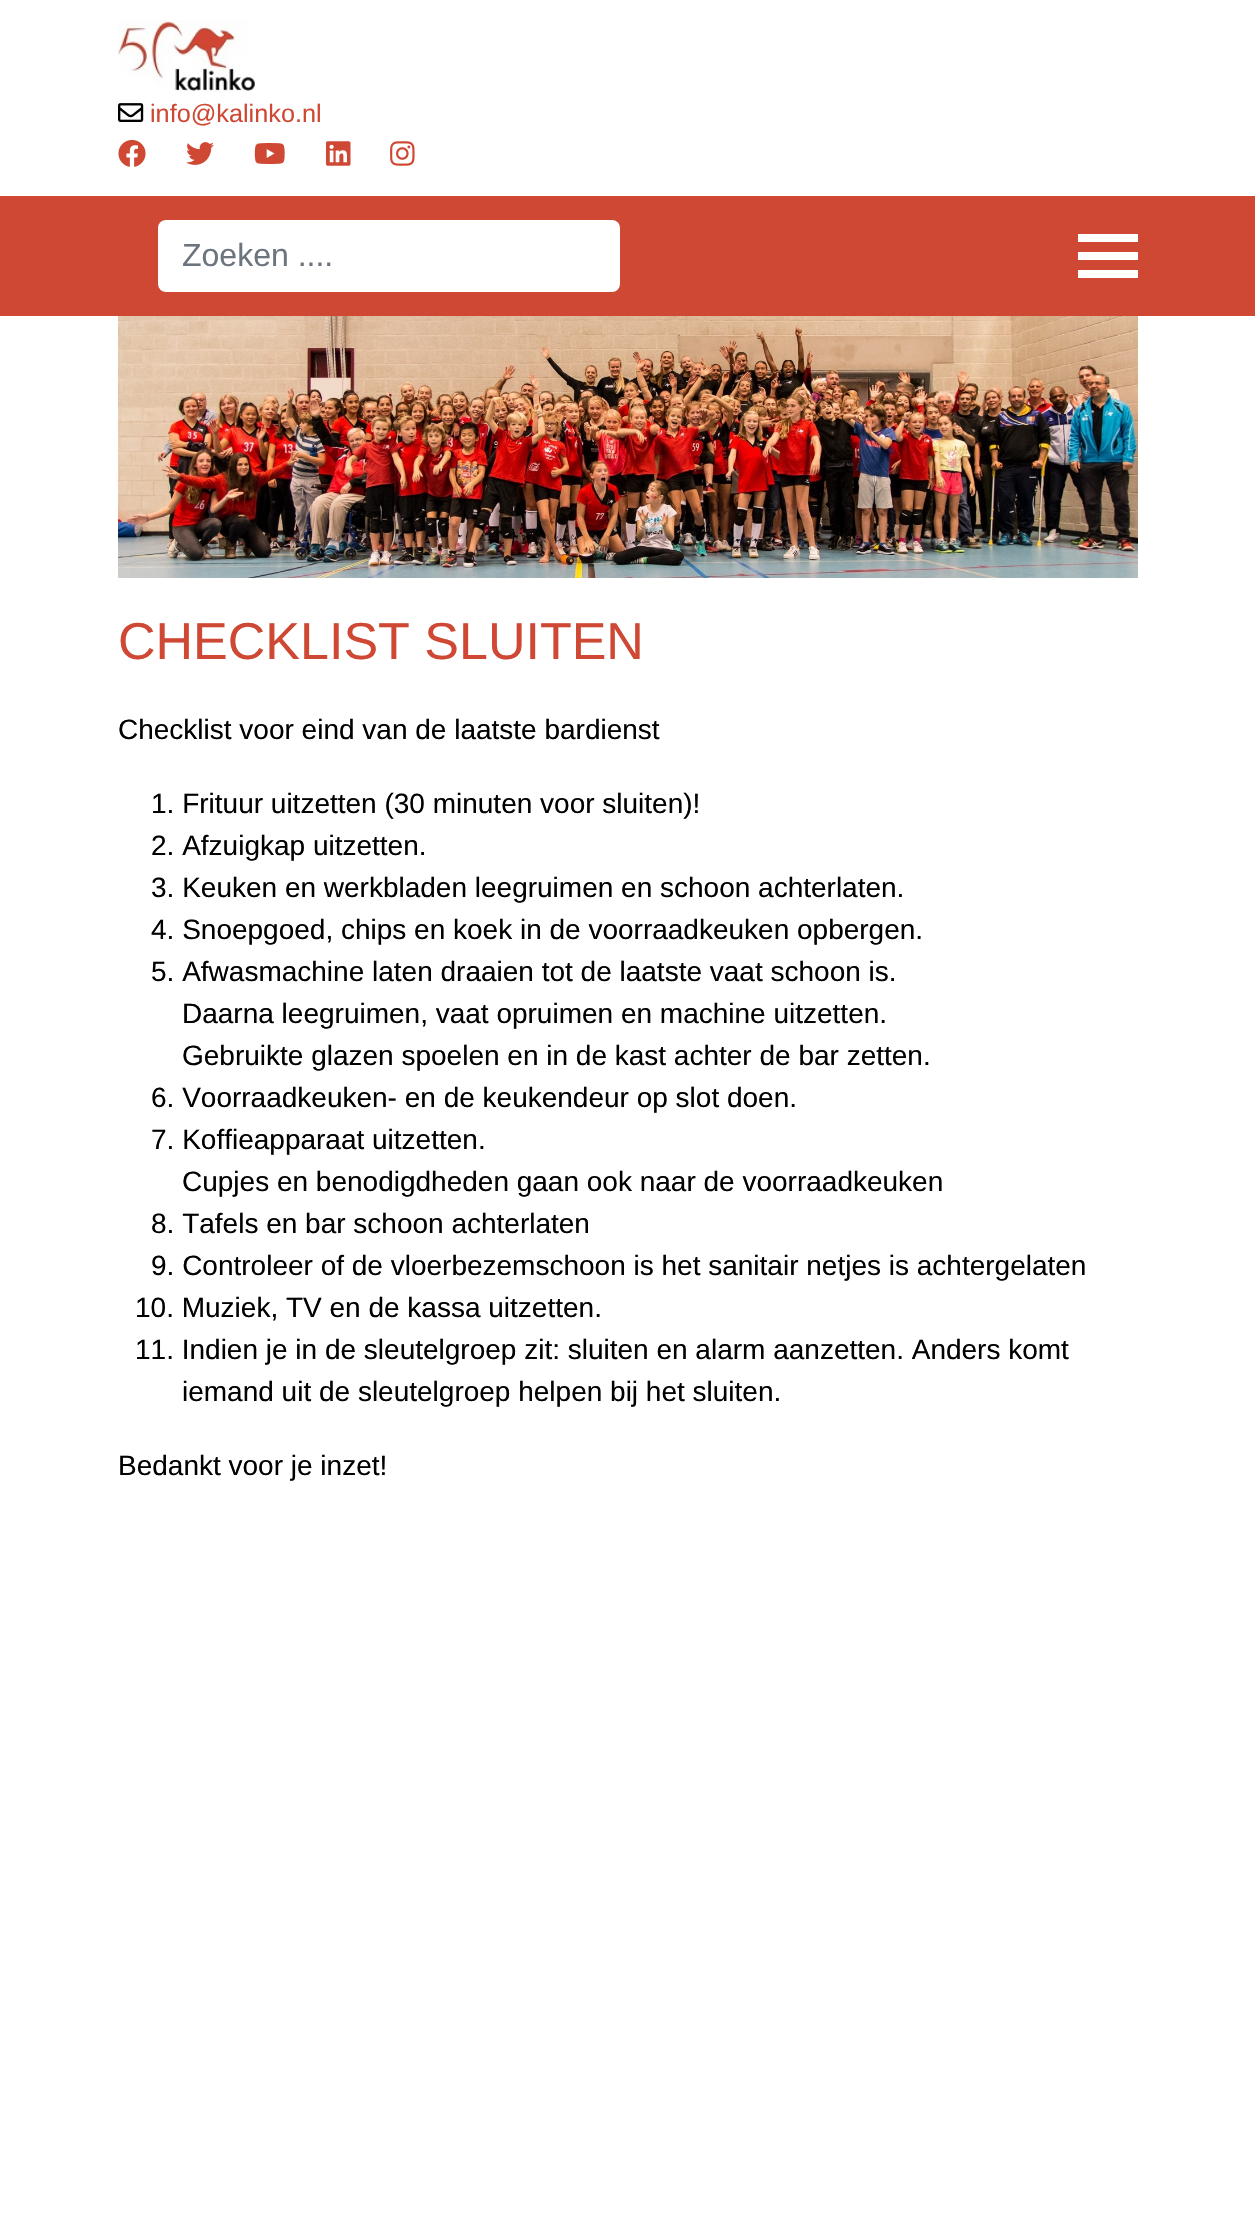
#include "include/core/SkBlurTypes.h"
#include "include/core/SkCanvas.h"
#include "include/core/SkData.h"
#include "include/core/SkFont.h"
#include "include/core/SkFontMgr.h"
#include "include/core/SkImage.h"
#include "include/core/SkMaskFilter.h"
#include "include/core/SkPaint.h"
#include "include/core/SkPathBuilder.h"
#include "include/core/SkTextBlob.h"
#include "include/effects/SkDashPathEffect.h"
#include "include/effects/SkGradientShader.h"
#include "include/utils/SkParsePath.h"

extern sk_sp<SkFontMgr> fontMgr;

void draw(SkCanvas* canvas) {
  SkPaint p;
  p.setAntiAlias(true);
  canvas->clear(SK_ColorWHITE);
  canvas->drawImageRect(SkImages::DeferredFromEncodedData(SkData::MakeFromFileName("images/1.png")), SkRect::MakeLTRB(118, 20, 256, 92), SkSamplingOptions());
  canvas->drawImageRect(SkImages::DeferredFromEncodedData(SkData::MakeFromFileName("images/2.png")), SkRect::MakeLTRB(118, 103, 144, 122), SkSamplingOptions());
  canvas->drawImageRect(SkImages::DeferredFromEncodedData(SkData::MakeFromFileName("images/3.png")), SkRect::MakeLTRB(118, 140, 146, 167), SkSamplingOptions());
  canvas->drawImageRect(SkImages::DeferredFromEncodedData(SkData::MakeFromFileName("images/4.png")), SkRect::MakeLTRB(186, 142, 214, 165), SkSamplingOptions());
  canvas->drawImageRect(SkImages::DeferredFromEncodedData(SkData::MakeFromFileName("images/5.png")), SkRect::MakeLTRB(254, 143, 285, 164), SkSamplingOptions());
  canvas->drawImageRect(SkImages::DeferredFromEncodedData(SkData::MakeFromFileName("images/6.png")), SkRect::MakeLTRB(326, 141, 351, 166), SkSamplingOptions());
  canvas->drawImageRect(SkImages::DeferredFromEncodedData(SkData::MakeFromFileName("images/7.png")), SkRect::MakeLTRB(390, 141, 415, 166), SkSamplingOptions());
  p.setColor(SkColorSetRGB(207, 72, 52));
  canvas->drawRect(SkRect::MakeLTRB(0, 196, 1255, 316), p);
  p.setColor(SK_ColorWHITE);
  canvas->drawRoundRect(SkRect::MakeLTRB(158, 220, 620, 292), 8, 8, p);
  canvas->drawRect(SkRect::MakeLTRB(1078, 234, 1138, 242), p);
  canvas->drawRect(SkRect::MakeLTRB(1078, 252, 1138, 260), p);
  canvas->drawRect(SkRect::MakeLTRB(1078, 270, 1138, 278), p);
  canvas->drawImageRect(SkImages::DeferredFromEncodedData(SkData::MakeFromFileName("images/8.png")), SkRect::MakeLTRB(118, 316, 1138, 578), SkSamplingOptions());
  SkFont font1(fontMgr->matchFamilyStyle("Liberation Sans", SkFontStyle::Normal()), 25.25f);
  font1.setSubpixel(true);
  p.setColor(SkColorSetRGB(207, 72, 52));
  canvas->drawString("info@kalinko.nl", 150, 122, font1, p);
  SkFont font2(fontMgr->matchFamilyStyle("Liberation Sans", SkFontStyle::Normal()), 32);
  font2.setSubpixel(true);
  p.setColor(SkColorSetRGB(108, 117, 125));
  canvas->drawString("Zoeken ....", 182, 266, font2, p);
  SkFont font3(fontMgr->matchFamilyStyle("Liberation Sans", SkFontStyle::Normal()), 52);
  font3.setSubpixel(true);
  p.setColor(SkColorSetRGB(207, 72, 52));
  canvas->drawString("CHECKLIST SLUITEN", 118, 659, font3, p);
  SkFont font4(fontMgr->matchFamilyStyle("Liberation Sans", SkFontStyle::Normal()), 28);
  font4.setSubpixel(true);
  p.setColor(SK_ColorBLACK);
  canvas->drawString("Checklist voor eind van de laatste bardienst", 118, 739, font4, p);
  canvas->drawString("1. Frituur uitzetten (30 minuten voor sluiten)!", 151, 813, font4, p);
  canvas->drawString("2. Afzuigkap uitzetten.", 151, 855, font4, p);
  canvas->drawString("3. Keuken en werkbladen leegruimen en schoon achterlaten.", 151, 897, font4, p);
  canvas->drawString("4. Snoepgoed, chips en koek in de voorraadkeuken opbergen.", 151, 939, font4, p);
  canvas->drawString("5. Afwasmachine laten draaien tot de laatste vaat schoon is.", 151, 981, font4, p);
  canvas->drawString("Daarna leegruimen, vaat opruimen en machine uitzetten.", 182, 1023, font4, p);
  canvas->drawString("Gebruikte glazen spoelen en in de kast achter de bar zetten.", 182, 1065, font4, p);
  canvas->drawString("6. Voorraadkeuken- en de keukendeur op slot doen.", 151, 1107, font4, p);
  canvas->drawString("7. Koffieapparaat uitzetten.", 151, 1149, font4, p);
  canvas->drawString("Cupjes en benodigdheden gaan ook naar de voorraadkeuken", 182, 1191, font4, p);
  canvas->drawString("8. Tafels en bar schoon achterlaten", 151, 1233, font4, p);
  canvas->drawString("9. Controleer of de vloerbezemschoon is het sanitair netjes is achtergelaten", 151, 1275, font4, p);
  canvas->drawString("10. Muziek, TV en de kassa uitzetten.", 135, 1317, font4, p);
  canvas->drawString("11. Indien je in de sleutelgroep zit: sluiten en alarm aanzetten. Anders komt", 135, 1359, font4, p);
  canvas->drawString("iemand uit de sleutelgroep helpen bij het sluiten.", 182, 1401, font4, p);
  canvas->drawString("Bedankt voor je inzet!", 118, 1475, font4, p);
}
